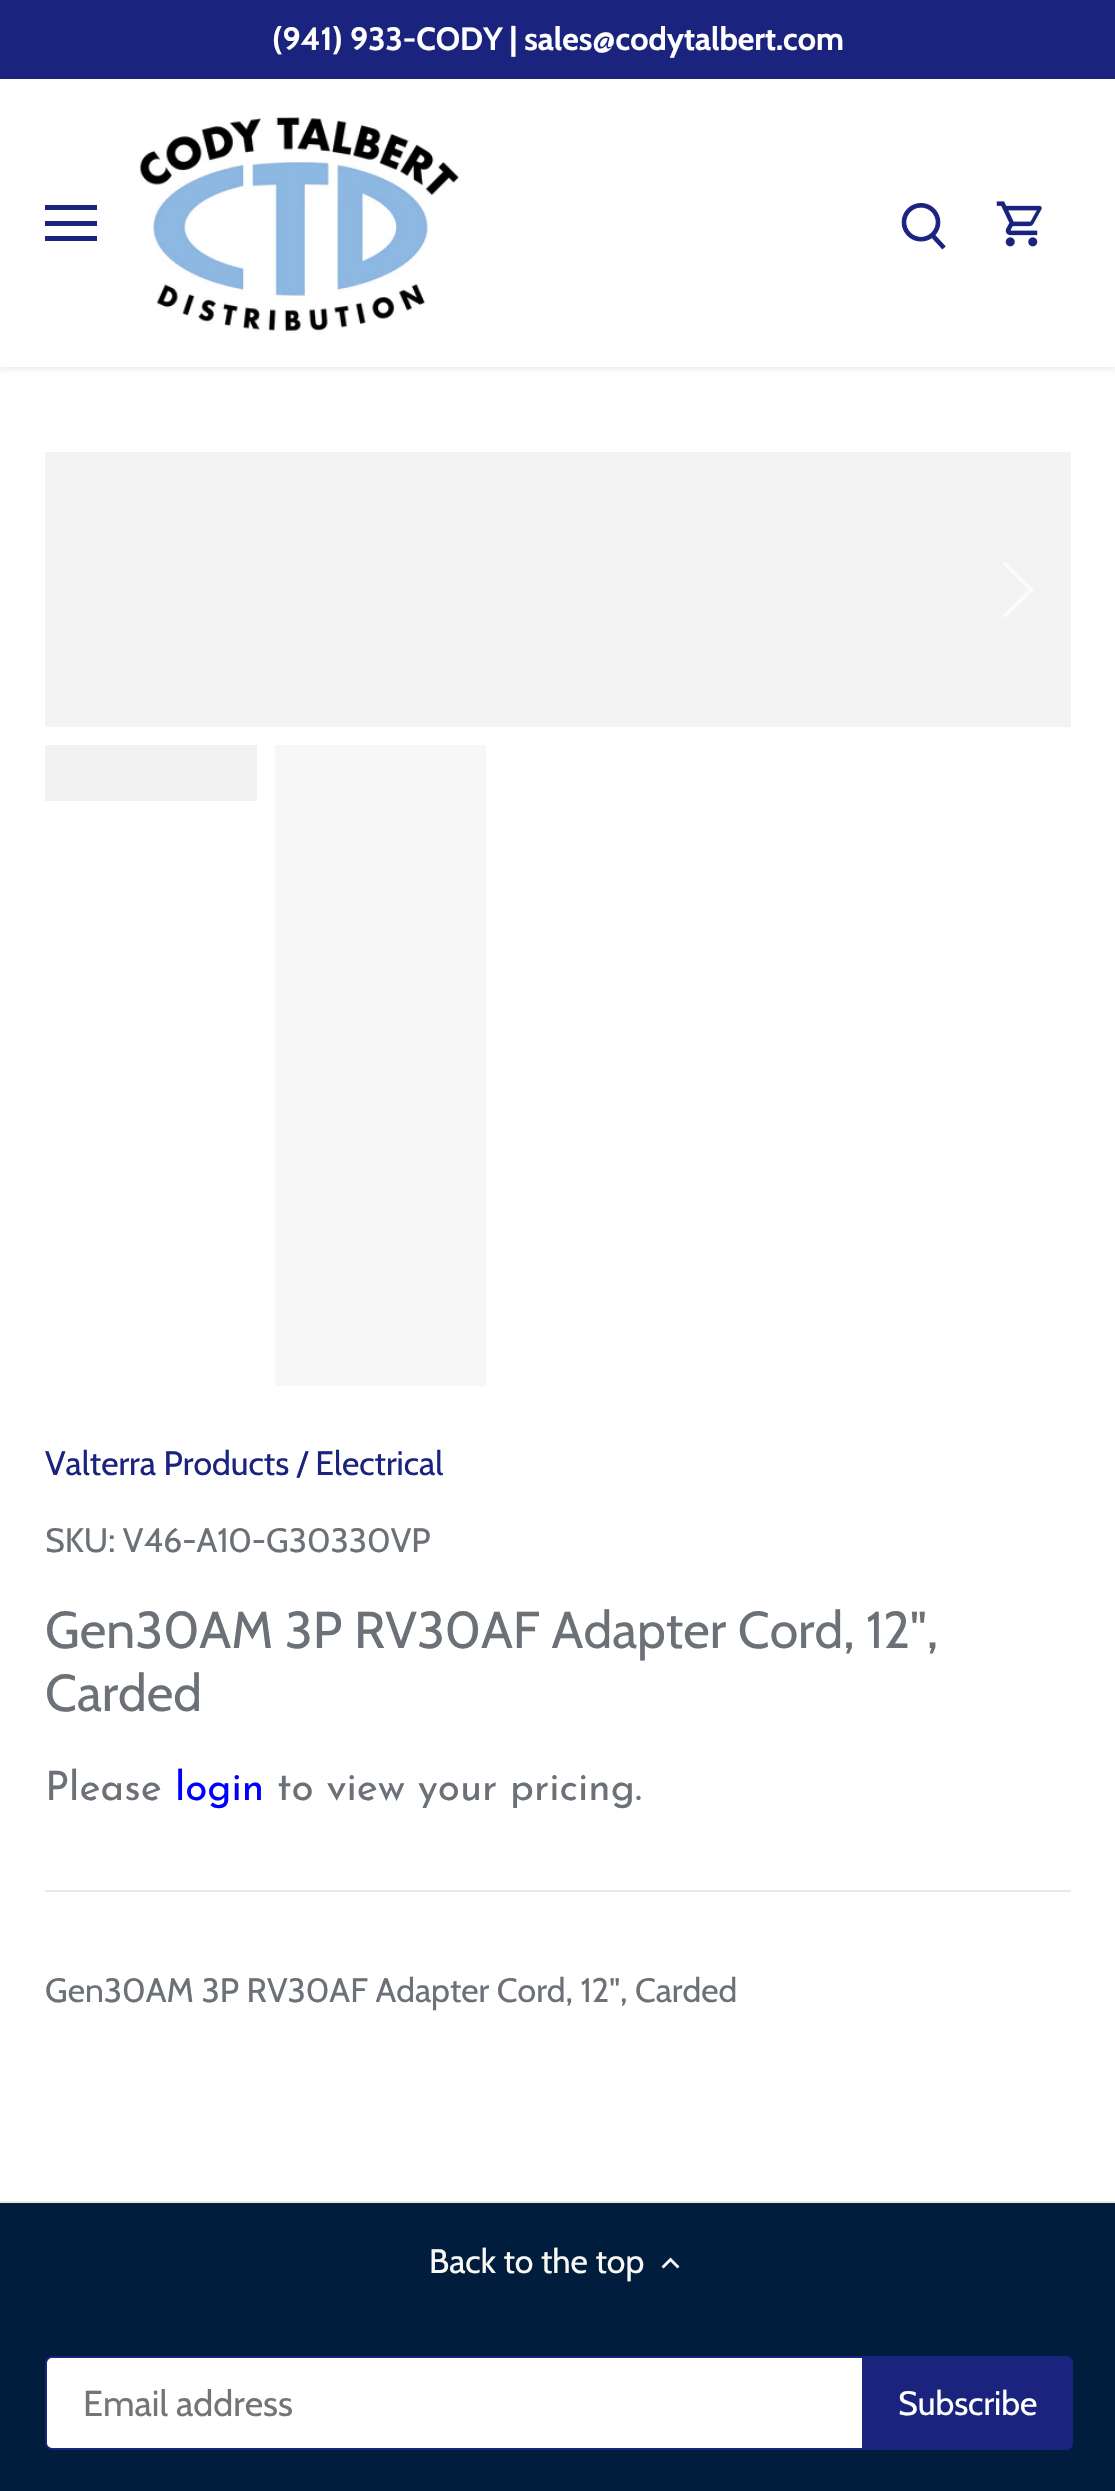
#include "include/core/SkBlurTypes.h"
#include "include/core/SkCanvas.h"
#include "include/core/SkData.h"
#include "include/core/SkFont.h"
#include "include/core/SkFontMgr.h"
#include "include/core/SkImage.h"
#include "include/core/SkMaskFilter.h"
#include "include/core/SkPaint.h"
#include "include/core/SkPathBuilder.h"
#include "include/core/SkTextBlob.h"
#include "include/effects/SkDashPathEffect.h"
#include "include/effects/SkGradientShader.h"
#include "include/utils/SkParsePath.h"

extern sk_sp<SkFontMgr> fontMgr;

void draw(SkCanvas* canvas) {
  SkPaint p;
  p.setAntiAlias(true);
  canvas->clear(SkColorSetRGB(0, 29, 61));
  p.setColor(SK_ColorWHITE);
  canvas->drawRect(SkRect::MakeLTRB(0, 367, 1115, 2201), p);
  p.setColor(SkColorSetARGB(20, 0, 0, 0));
  p.setMaskFilter(SkMaskFilter::MakeBlur(kNormal_SkBlurStyle, 3.5f));
  canvas->drawRect(SkRect::MakeLTRB(-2, 77, 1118, 369), p);
  p.setMaskFilter(nullptr);
  p.setColor(SkColorSetRGB(26, 35, 126));
  canvas->drawRect(SkRect::MakeLTRB(0, 0, 1115, 79), p);
  p.setColor(SK_ColorWHITE);
  canvas->drawRect(SkRect::MakeLTRB(0, 79, 1115, 367), p);
  p.setColor(SkColorSetRGB(26, 35, 126));
  canvas->drawRect(SkRect::MakeLTRB(45, 205, 97, 210), p);
  canvas->drawRect(SkRect::MakeLTRB(45, 221, 97, 226), p);
  canvas->drawRect(SkRect::MakeLTRB(45, 236, 97, 241), p);
  canvas->drawImageRect(SkImages::DeferredFromEncodedData(SkData::MakeFromFileName("images/1.png")), SkRect::MakeLTRB(139, 117, 460, 333), SkSamplingOptions());
  canvas->drawImageRect(SkImages::DeferredFromEncodedData(SkData::MakeFromFileName("images/2.png")), SkRect::MakeLTRB(901, 203, 946, 250), SkSamplingOptions());
  canvas->drawImageRect(SkImages::DeferredFromEncodedData(SkData::MakeFromFileName("images/3.png")), SkRect::MakeLTRB(996, 201, 1042, 247), SkSamplingOptions());
  p.setColor(SkColorSetRGB(243, 243, 243));
  canvas->drawRect(SkRect::MakeLTRB(45, 452, 1071, 727), p);
  p.setColor(SkColorSetRGB(252, 252, 252));
  canvas->drawPath(SkPathBuilder().moveTo(1005, 561).lineTo(1003, 564).lineTo(1029, 590).lineTo(1003, 615).lineTo(1005, 618).lineTo(1034, 590).close().detach(), p);
  p.setColor(SkColorSetRGB(242, 242, 242));
  canvas->drawRect(SkRect::MakeLTRB(45, 745, 257, 801), p);
  p.setColor(SkColorSetRGB(247, 247, 247));
  canvas->drawRect(SkRect::MakeLTRB(275, 745, 486, 1386), p);
  p.setColor(SkColorSetRGB(237, 232, 221));
  canvas->drawRect(SkRect::MakeLTRB(45, 1890, 1071, 1892), p);
  canvas->drawRect(SkRect::MakeLTRB(0, 2201, 1115, 2203), p);
  p.setColor(SkColorSetRGB(250, 249, 246));
  canvas->drawPath(SkPathBuilder().moveTo(663.5f, 2268.5f).lineTo(670.5f, 2261.5f).lineTo(677.5f, 2268.5f).lineTo(679.5f, 2266.5f).lineTo(670.5f, 2257.5f).lineTo(661.5f, 2266.5f).close().detach(), p);
  p.setColor(SK_ColorWHITE);
  canvas->drawRoundRect(SkRect::MakeLTRB(46, 2357, 1070, 2449), 6, 6, p);
  p.setStyle(SkPaint::kStroke_Style);
  p.setStrokeWidth(2);
  p.setColor(SkColorSetRGB(26, 35, 126));
  canvas->drawRoundRect(SkRect::MakeLTRB(46, 2357, 1070, 2449), 6, 6, p);
  p.setStyle(SkPaint::kFill_Style);
  canvas->drawPath(SkPathBuilder().moveTo(863, 2357).lineTo(1066, 2357).cubicTo(1069.5f, 2357, 1072, 2359.5f, 1072, 2363).lineTo(1072, 2443).cubicTo(1072, 2446.5f, 1069.5f, 2449, 1066, 2449).lineTo(863, 2449).close().detach(), p);
  p.setStyle(SkPaint::kStroke_Style);
  canvas->drawPath(SkPathBuilder().moveTo(863, 2357).lineTo(1066, 2357).cubicTo(1069.5f, 2357, 1072, 2359.5f, 1072, 2363).lineTo(1072, 2443).cubicTo(1072, 2446.5f, 1069.5f, 2449, 1066, 2449).lineTo(863, 2449).close().detach(), p);
  SkFont font1(fontMgr->matchFamilyStyle("Cabin", SkFontStyle::Bold()), 32.1f);
  font1.setSubpixel(true);
  p.setStyle(SkPaint::kFill_Style);
  p.setColor(SK_ColorWHITE);
  canvas->drawString("(941) 933-CODY | sales@codytalbert.com", 272, 50, font1, p);
  SkFont font2(fontMgr->matchFamilyStyle("Cabin", SkFontStyle::Normal()), 33.75f);
  font2.setSubpixel(true);
  p.setColor(SkColorSetRGB(26, 35, 126));
  canvas->drawString("Valterra Products / Electrical", 45, 1475, font2, p);
  p.setColor(SkColorSetRGB(107, 113, 119));
  canvas->drawString("SKU: V46-A10-G30330VP", 45, 1552, font2, p);
  SkFont font3(fontMgr->matchFamilyStyle("Cabin", SkFontStyle::Normal()), 51.75f);
  font3.setSubpixel(true);
  canvas->drawString("Gen30AM 3P RV30AF Adapter Cord, 12\",", 45, 1648, font3, p);
  canvas->drawString("Carded", 45, 1711, font3, p);
  SkFont font4(fontMgr->matchFamilyStyle("Josefin Sans", SkFontStyle::Normal()), 40.5f);
  font4.setSubpixel(true);
  canvas->drawString("Please", 45, 1800, font4, p);
  p.setColor(SkColorSetRGB(0, 0, 255));
  canvas->drawString("login", 175, 1800, font4, p);
  p.setColor(SkColorSetRGB(107, 113, 119));
  canvas->drawString("to view your pricing.", 277, 1800, font4, p);
  canvas->drawString("Gen30AM 3P RV30AF Adapter Cord, 12\", Carded", 45, 2002, font2, p);
  p.setColor(SkColorSetRGB(250, 249, 246));
  canvas->drawString("Back to the top", 429, 2273, font2, p);
  SkFont font5(fontMgr->matchFamilyStyle("Cabin", SkFontStyle::Normal()), 36);
  font5.setSubpixel(true);
  p.setColor(SkColorSetRGB(117, 117, 117));
  canvas->drawString("Email address", 83, 2416, font5, p);
  p.setColor(SK_ColorWHITE);
  canvas->drawString("Subscribe", 898, 2415, font2, p);
}
